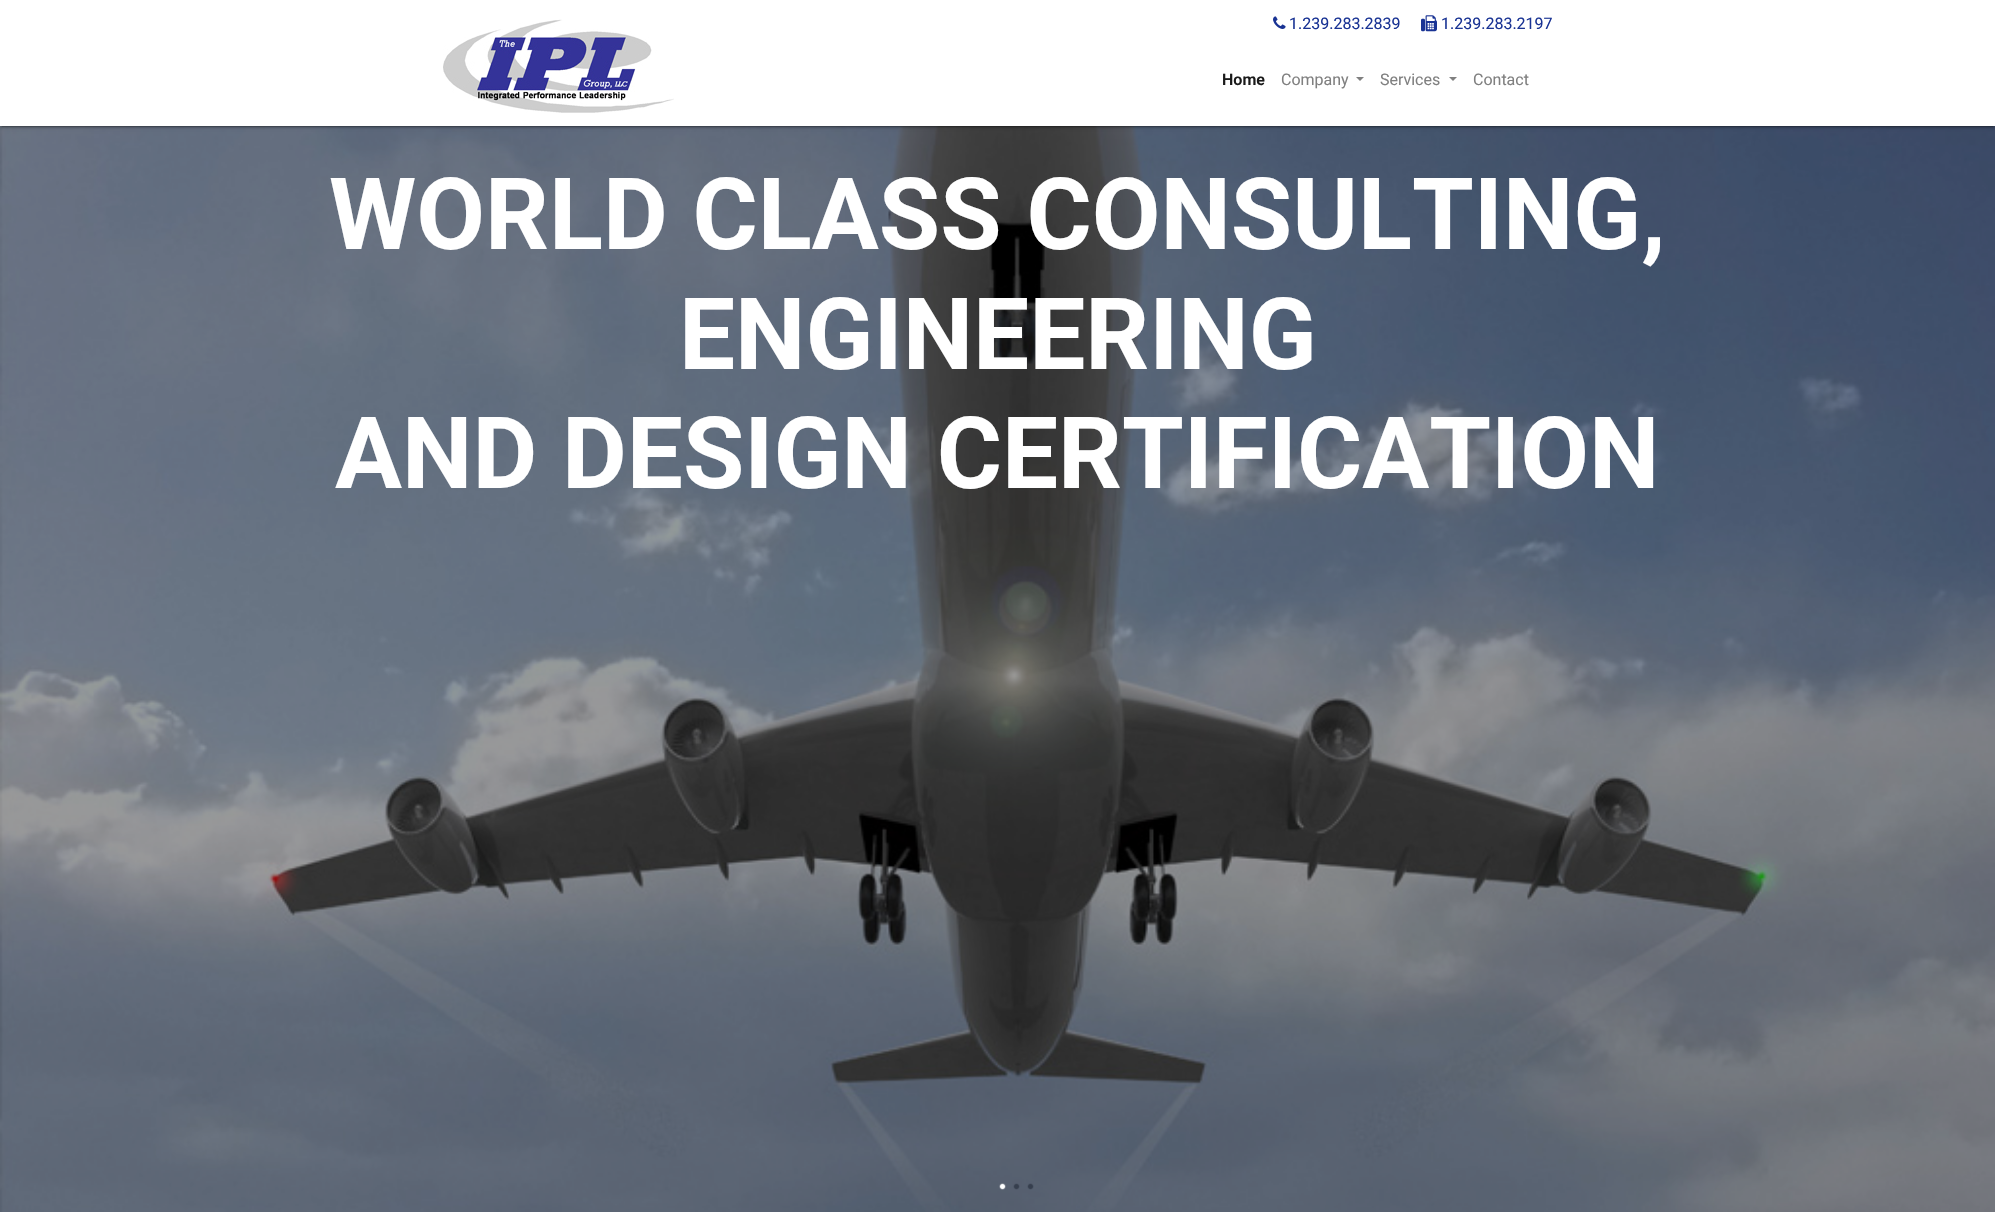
#include "include/core/SkBlurTypes.h"
#include "include/core/SkCanvas.h"
#include "include/core/SkData.h"
#include "include/core/SkFont.h"
#include "include/core/SkFontMgr.h"
#include "include/core/SkImage.h"
#include "include/core/SkMaskFilter.h"
#include "include/core/SkPaint.h"
#include "include/core/SkPathBuilder.h"
#include "include/core/SkTextBlob.h"
#include "include/effects/SkDashPathEffect.h"
#include "include/effects/SkGradientShader.h"
#include "include/utils/SkParsePath.h"

extern sk_sp<SkFontMgr> fontMgr;

void draw(SkCanvas* canvas) {
  SkPaint p;
  p.setAntiAlias(true);
  canvas->clear(SK_ColorWHITE);
  canvas->drawImageRect(SkImages::DeferredFromEncodedData(SkData::MakeFromFileName("images/4.png")), SkRect::MakeLTRB(0, 126, 1995, 1212), SkSamplingOptions());
  p.setColor(SkColorSetARGB(51, 0, 0, 0));
  p.setMaskFilter(SkMaskFilter::MakeBlur(kNormal_SkBlurStyle, 0.5f));
  canvas->drawRect(SkRect::MakeLTRB(2, 5, 1993, 127), p);
  p.setMaskFilter(nullptr);
  p.setColor(SkColorSetARGB(31, 0, 0, 0));
  p.setMaskFilter(SkMaskFilter::MakeBlur(kNormal_SkBlurStyle, 2.5f));
  canvas->drawRect(SkRect::MakeLTRB(0, 1, 1995, 127), p);
  p.setMaskFilter(nullptr);
  p.setColor(SkColorSetARGB(36, 0, 0, 0));
  p.setMaskFilter(SkMaskFilter::MakeBlur(kNormal_SkBlurStyle, 1));
  canvas->drawRect(SkRect::MakeLTRB(0, 2, 1995, 128), p);
  p.setMaskFilter(nullptr);
  p.setColor(SK_ColorWHITE);
  canvas->drawRect(SkRect::MakeLTRB(0, 0, 1995, 126), p);
  canvas->drawImageRect(SkImages::DeferredFromEncodedData(SkData::MakeFromFileName("images/1.png")), SkRect::MakeLTRB(443, 19, 674, 113), SkSamplingOptions());
  canvas->drawImageRect(SkImages::DeferredFromEncodedData(SkData::MakeFromFileName("images/2.png")), SkRect::MakeLTRB(1273, 16, 1286, 29), SkSamplingOptions());
  canvas->drawImageRect(SkImages::DeferredFromEncodedData(SkData::MakeFromFileName("images/3.png")), SkRect::MakeLTRB(1421, 15, 1437, 32), SkSamplingOptions());
  p.setColor(SkColorSetRGB(128, 128, 128));
  canvas->drawPath(SkPathBuilder().moveTo(1356, 77).lineTo(1364, 77).lineTo(1360, 81).close().detach(), p);
  canvas->drawPath(SkPathBuilder().moveTo(1449, 77).lineTo(1457, 77).lineTo(1453, 81).close().detach(), p);
  canvas->drawImageRect(SkImages::DeferredFromEncodedData(SkData::MakeFromFileName("images/5.png")), SkRect::MakeLTRB(999, 1183, 1006, 1190), SkSamplingOptions());
  canvas->drawImageRect(SkImages::DeferredFromEncodedData(SkData::MakeFromFileName("images/6.png")), SkRect::MakeLTRB(1013, 1183, 1020, 1190), SkSamplingOptions());
  canvas->drawImageRect(SkImages::DeferredFromEncodedData(SkData::MakeFromFileName("images/7.png")), SkRect::MakeLTRB(1027, 1183, 1034, 1190), SkSamplingOptions());
  SkFont font1(fontMgr->matchFamilyStyle("Roboto", SkFontStyle::Normal()), 16);
  font1.setSubpixel(true);
  p.setColor(SkColorSetRGB(25, 51, 148));
  canvas->drawString("1.239.283.2839", 1289, 29, font1, p);
  canvas->drawString("1.239.283.2197", 1441, 29, font1, p);
  SkFont font2(fontMgr->matchFamilyStyle("Roboto", SkFontStyle(600, SkFontStyle::kNormal_Width, SkFontStyle::kUpright_Slant)), 16);
  font2.setSubpixel(true);
  p.setColor(SkColorSetRGB(26, 26, 26));
  canvas->drawString("Home", 1222, 85, font2, p);
  p.setColor(SkColorSetRGB(128, 128, 128));
  canvas->drawString("Company", 1281, 85, font1, p);
  canvas->drawString("Services", 1380, 85, font1, p);
  canvas->drawString("Contact", 1473, 85, font1, p);
  SkFont font3(fontMgr->matchFamilyStyle("Roboto", SkFontStyle::Bold()), 99.75f);
  font3.setSubpixel(true);
  p.setColor(SK_ColorWHITE);
  canvas->drawString("WORLD CLASS CONSULTING,", 329, 249, font3, p);
  canvas->drawString("ENGINEERING", 679, 369, font3, p);
  canvas->drawString("AND DESIGN CERTIFICATION", 335, 488, font3, p);
}
